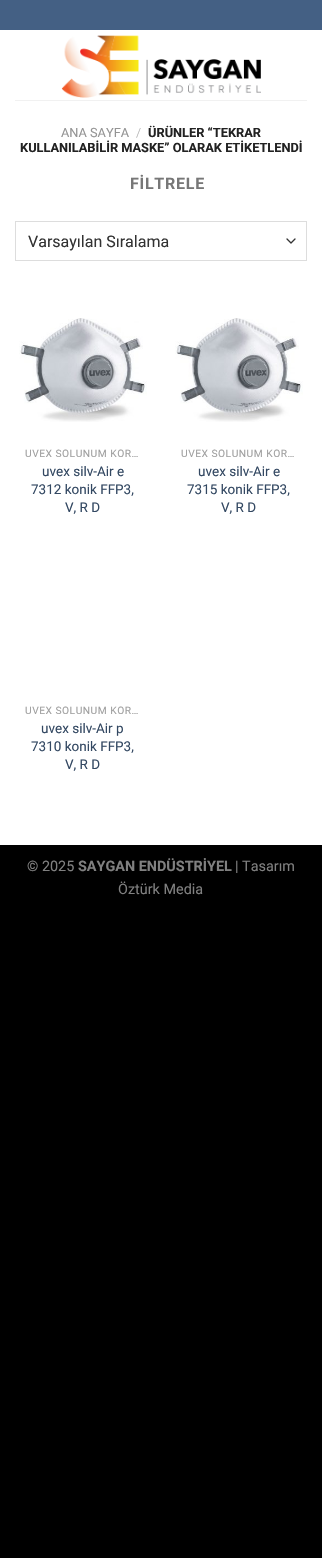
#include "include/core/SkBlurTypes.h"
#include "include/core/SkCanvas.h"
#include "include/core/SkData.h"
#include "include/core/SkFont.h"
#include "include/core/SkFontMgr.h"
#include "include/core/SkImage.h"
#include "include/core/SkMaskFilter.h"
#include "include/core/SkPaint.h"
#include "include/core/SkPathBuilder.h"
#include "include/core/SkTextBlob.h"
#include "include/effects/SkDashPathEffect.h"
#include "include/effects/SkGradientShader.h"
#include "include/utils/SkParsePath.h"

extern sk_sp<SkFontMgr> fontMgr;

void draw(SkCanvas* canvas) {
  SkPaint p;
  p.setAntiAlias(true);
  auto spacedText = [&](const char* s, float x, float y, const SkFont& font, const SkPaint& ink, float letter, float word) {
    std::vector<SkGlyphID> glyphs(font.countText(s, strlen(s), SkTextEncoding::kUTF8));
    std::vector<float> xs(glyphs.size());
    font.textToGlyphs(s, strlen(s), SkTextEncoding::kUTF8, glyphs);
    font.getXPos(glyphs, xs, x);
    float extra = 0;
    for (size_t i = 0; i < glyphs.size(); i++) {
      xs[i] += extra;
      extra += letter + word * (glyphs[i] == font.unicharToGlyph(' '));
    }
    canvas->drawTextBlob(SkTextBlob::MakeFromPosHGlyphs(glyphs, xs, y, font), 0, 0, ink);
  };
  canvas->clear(SK_ColorBLACK);
  p.setColor(SK_ColorWHITE);
  canvas->drawRect(SkRect::MakeLTRB(0, 30, 322, 845), p);
  p.setColor(SkColorSetRGB(68, 96, 132));
  canvas->drawRect(SkRect::MakeLTRB(0, 0, 322, 30), p);
  canvas->drawImageRect(SkImages::DeferredFromEncodedData(SkData::MakeFromFileName("images/1.png")), SkRect::MakeLTRB(61, 35, 261, 98), SkSamplingOptions());
  p.setColor(SkColorSetRGB(241, 241, 241));
  canvas->drawRect(SkRect::MakeLTRB(15, 100, 307, 101), p);
  p.setStyle(SkPaint::kStroke_Style);
  p.setStrokeWidth(1.3f);
  p.setStrokeCap(SkPaint::kRound_Cap);
  p.setStrokeJoin(SkPaint::kRound_Join);
  p.setColor(SkColorSetRGB(51, 51, 51));
  canvas->drawPath(SkPathBuilder().moveTo(287, 239).lineTo(291, 243).lineTo(295, 239).detach(), p);
  p.setStrokeWidth(1);
  p.setStrokeCap(SkPaint::kButt_Cap);
  p.setStrokeJoin(SkPaint::kMiter_Join);
  p.setColor(SkColorSetRGB(221, 221, 221));
  canvas->drawRect(SkRect::MakeLTRB(15.5f, 221.5f, 306.5f, 260.5f), p);
  canvas->drawImageRect(SkImages::DeferredFromEncodedData(SkData::MakeFromFileName("images/2.png")), SkRect::MakeLTRB(19, 318, 147, 422), SkSamplingOptions());
  canvas->drawImageRect(SkImages::DeferredFromEncodedData(SkData::MakeFromFileName("images/3.png")), SkRect::MakeLTRB(175, 318, 303, 422), SkSamplingOptions());
  SkFont font1(fontMgr->matchFamilyStyle("Roboto", SkFontStyle::Normal()), 12.8f);
  font1.setSubpixel(true);
  p.setStyle(SkPaint::kFill_Style);
  p.setColor(SkColorSetRGB(148, 148, 148));
  canvas->drawString("ANA SAYFA", 61, 137, font1, p);
  SkFont font2(fontMgr->matchFamilyStyle("Roboto", SkFontStyle(300, SkFontStyle::kNormal_Width, SkFontStyle::kUpright_Slant)), 12.8f);
  font2.setSubpixel(true);
  p.setColor(SkColorSetRGB(178, 178, 178));
  canvas->drawString("/", 136, 137, font2, p);
  SkFont font3(fontMgr->matchFamilyStyle("Roboto", SkFontStyle::Bold()), 12.8f);
  font3.setSubpixel(true);
  p.setColor(SkColorSetRGB(34, 34, 34));
  canvas->drawString("ÜRÜNLER “TEKRAR", 148, 137, font3, p);
  canvas->drawString("KULLANILABİLİR MASKE” OLARAK ETİKETLENDİ", 20, 152, font3, p);
  SkFont font4(fontMgr->matchFamilyStyle("Roboto", SkFontStyle::Bold()), 16);
  font4.setSubpixel(true);
  p.setColor(SkColorSetRGB(119, 119, 119));
  spacedText("FİLTRELE", 130, 189, font4, p, 0.75f, 0);
  SkFont font5(fontMgr->matchFamilyStyle("Roboto", SkFontStyle::Normal()), 16);
  font5.setSubpixel(true);
  p.setColor(SkColorSetRGB(51, 51, 51));
  canvas->drawString("Varsayılan Sıralama", 28, 247, font5, p);
  SkFont font6(fontMgr->matchFamilyStyle("Roboto", SkFontStyle::Normal()), 10.25f);
  font6.setSubpixel(true);
  p.setColor(SkColorSetRGB(160, 160, 160));
  spacedText("UVEX SOLUNUM KOR…", 25, 457, font6, p, 0.5f, 0);
  SkFont font7(fontMgr->matchFamilyStyle("Roboto", SkFontStyle::Normal()), 13.5f);
  font7.setSubpixel(true);
  p.setColor(SkColorSetRGB(51, 72, 98));
  canvas->drawString("uvex silv-Air e", 42, 476, font7, p);
  canvas->drawString("7312 konik FFP3,", 31, 494, font7, p);
  canvas->drawString("V, R D", 65, 512, font7, p);
  p.setColor(SkColorSetRGB(160, 160, 160));
  spacedText("UVEX SOLUNUM KOR…", 181, 457, font6, p, 0.5f, 0);
  p.setColor(SkColorSetRGB(51, 72, 98));
  canvas->drawString("uvex silv-Air e", 198, 476, font7, p);
  canvas->drawString("7315 konik FFP3,", 187, 494, font7, p);
  canvas->drawString("V, R D", 221, 512, font7, p);
  p.setColor(SkColorSetRGB(160, 160, 160));
  spacedText("UVEX SOLUNUM KOR…", 25, 714, font6, p, 0.5f, 0);
  p.setColor(SkColorSetRGB(51, 72, 98));
  canvas->drawString("uvex silv-Air p", 41, 733, font7, p);
  canvas->drawString("7310 konik FFP3,", 31, 751, font7, p);
  canvas->drawString("V, R D", 65, 769, font7, p);
  SkFont font8(fontMgr->matchFamilyStyle("Roboto", SkFontStyle::Normal()), 14.4f);
  font8.setSubpixel(true);
  p.setColor(SkColorSetRGB(128, 128, 128));
  canvas->drawString("© 2025", 27, 871, font8, p);
  SkFont font9(fontMgr->matchFamilyStyle("Roboto", SkFontStyle::Bold()), 14.4f);
  font9.setSubpixel(true);
  canvas->drawString("SAYGAN ENDÜSTRİYEL", 78, 871, font9, p);
  canvas->drawString("| Tasarım", 235, 871, font8, p);
  canvas->drawString("Öztürk Media", 118, 894, font8, p);
}
